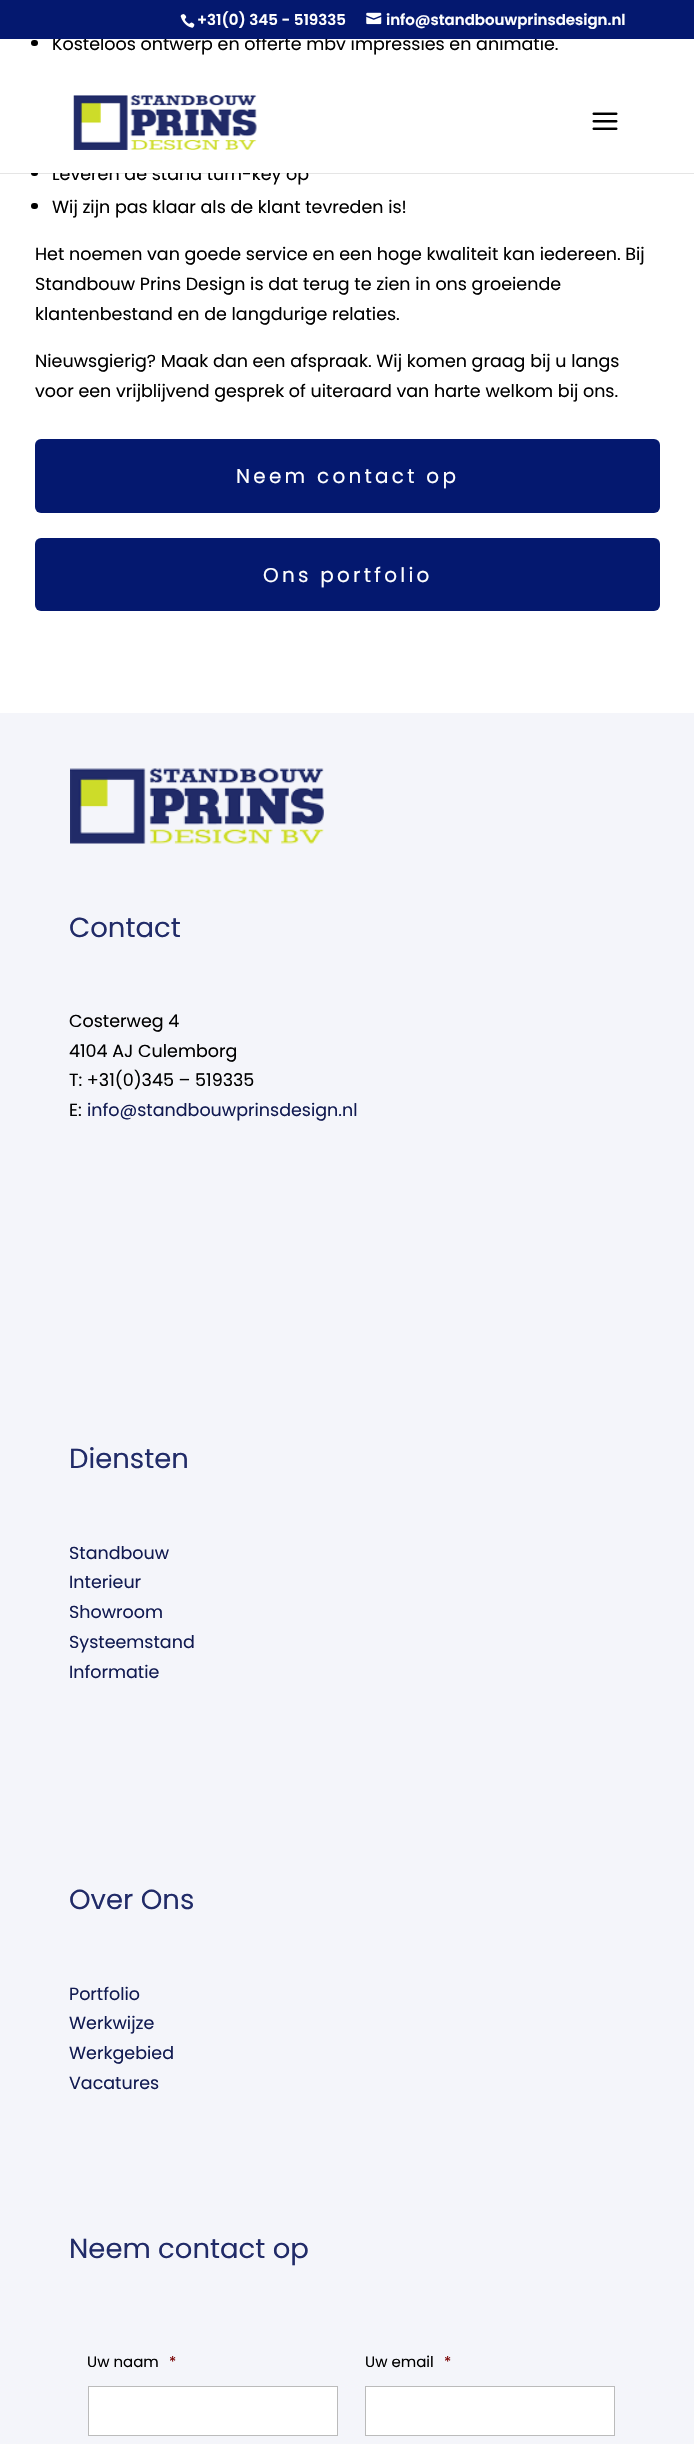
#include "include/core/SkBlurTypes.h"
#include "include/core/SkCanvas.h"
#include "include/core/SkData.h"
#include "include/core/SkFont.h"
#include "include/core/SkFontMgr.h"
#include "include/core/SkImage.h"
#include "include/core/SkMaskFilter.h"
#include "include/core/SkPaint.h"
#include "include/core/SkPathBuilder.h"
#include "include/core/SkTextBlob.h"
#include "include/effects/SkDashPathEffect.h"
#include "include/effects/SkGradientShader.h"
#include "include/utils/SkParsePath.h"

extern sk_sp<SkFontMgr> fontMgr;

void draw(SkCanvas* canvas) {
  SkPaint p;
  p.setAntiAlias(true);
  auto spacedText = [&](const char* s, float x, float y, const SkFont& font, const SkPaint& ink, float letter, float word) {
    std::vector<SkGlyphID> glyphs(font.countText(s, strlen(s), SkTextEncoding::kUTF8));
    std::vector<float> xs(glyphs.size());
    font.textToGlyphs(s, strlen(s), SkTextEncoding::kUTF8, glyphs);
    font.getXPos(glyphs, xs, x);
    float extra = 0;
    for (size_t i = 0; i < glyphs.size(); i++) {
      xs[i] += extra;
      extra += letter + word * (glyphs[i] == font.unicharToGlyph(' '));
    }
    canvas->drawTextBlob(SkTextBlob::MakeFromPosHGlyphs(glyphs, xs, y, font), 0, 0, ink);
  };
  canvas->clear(SK_ColorWHITE);
  p.setColor(SK_ColorBLACK);
  canvas->drawRoundRect(SkRect::MakeLTRB(31, 40, 38, 46), 3, 3, p);
  canvas->drawRoundRect(SkRect::MakeLTRB(31, 170, 38, 176), 3, 3, p);
  canvas->drawRoundRect(SkRect::MakeLTRB(31, 203, 38, 209), 3, 3, p);
  p.setColor(SkColorSetRGB(4, 24, 111));
  canvas->drawRoundRect(SkRect::MakeLTRB(35, 439, 660, 513), 6, 6, p);
  canvas->drawRoundRect(SkRect::MakeLTRB(35, 538, 660, 611), 6, 6, p);
  p.setColor(SkColorSetRGB(244, 245, 250));
  canvas->drawRect(SkRect::MakeLTRB(0, 713, 694, 2444), p);
  canvas->drawImageRect(SkImages::DeferredFromEncodedData(SkData::MakeFromFileName("images/3.png")), SkRect::MakeLTRB(70, 768, 324, 844), SkSamplingOptions());
  p.setColor(SK_ColorWHITE);
  canvas->drawRect(SkRect::MakeLTRB(88.5f, 2386.5f, 337.5f, 2435.5f), p);
  p.setStyle(SkPaint::kStroke_Style);
  p.setStrokeWidth(1);
  p.setColor(SkColorSetRGB(187, 187, 187));
  canvas->drawRect(SkRect::MakeLTRB(88.5f, 2386.5f, 337.5f, 2435.5f), p);
  p.setStyle(SkPaint::kFill_Style);
  p.setColor(SK_ColorWHITE);
  canvas->drawRect(SkRect::MakeLTRB(365.5f, 2386.5f, 614.5f, 2435.5f), p);
  p.setStyle(SkPaint::kStroke_Style);
  p.setColor(SkColorSetRGB(187, 187, 187));
  canvas->drawRect(SkRect::MakeLTRB(365.5f, 2386.5f, 614.5f, 2435.5f), p);
  p.setStyle(SkPaint::kFill_Style);
  p.setColor(SkColorSetARGB(26, 0, 0, 0));
  canvas->drawRect(SkRect::MakeLTRB(0, 173, 694, 174), p);
  canvas->drawImageRect(SkImages::DeferredFromEncodedData(SkData::MakeFromFileName("images/4.png")), SkRect::MakeLTRB(73, 95, 257, 150), SkSamplingOptions());
  canvas->drawImageRect(SkImages::DeferredFromEncodedData(SkData::MakeFromFileName("images/5.png")), SkRect::MakeLTRB(592, 112, 618, 130), SkSamplingOptions());
  SkFont font1(fontMgr->matchFamilyStyle("Poppins", SkFontStyle::Normal()), 17.5f);
  font1.setSubpixel(true);
  p.setColor(SK_ColorBLACK);
  canvas->drawString("Kosteloos ontwerp en offerte mbv impressies en animatie.", 52, 50, font1, p);
  p.setColor(SkColorSetRGB(4, 24, 111));
  canvas->drawRect(SkRect::MakeLTRB(0, 0, 694, 39), p);
  SkFont font2(fontMgr->matchFamilyStyle("Poppins", SkFontStyle(600, SkFontStyle::kNormal_Width, SkFontStyle::kUpright_Slant)), 15);
  font2.setSubpixel(true);
  p.setColor(SK_ColorWHITE);
  canvas->drawString("info@standbouwprinsdesign.nl", 386, 25, font2, p);
  canvas->drawImageRect(SkImages::DeferredFromEncodedData(SkData::MakeFromFileName("images/2.png")), SkRect::MakeLTRB(366, 12, 382, 25), SkSamplingOptions());
  canvas->drawImageRect(SkImages::DeferredFromEncodedData(SkData::MakeFromFileName("images/1.png")), SkRect::MakeLTRB(180, 14, 195, 28), SkSamplingOptions());
  canvas->drawString("+31(0) 345 - 519335", 197, 25, font2, p);
  p.setColor(SK_ColorBLACK);
  canvas->drawString("Leveren de stand turn-key op", 52, 180, font1, p);
  canvas->drawString("Wij zijn pas klaar als de klant tevreden is!", 52, 213, font1, p);
  canvas->drawString("Het noemen van goede service en een hoge kwaliteit kan iedereen. Bij", 35, 260, font1, p);
  canvas->drawString("Standbouw Prins Design is dat terug te zien in ons groeiende", 35, 290, font1, p);
  canvas->drawString("klantenbestand en de langdurige relaties.", 35, 320, font1, p);
  canvas->drawString("Nieuwsgierig? Maak dan een afspraak. Wij komen graag bij u langs", 35, 367, font1, p);
  canvas->drawString("voor een vrijblijvend gesprek of uiteraard van harte welkom bij ons.", 35, 397, font1, p);
  SkFont font3(fontMgr->matchFamilyStyle("Poppins", SkFontStyle::Normal()), 20);
  font3.setSubpixel(true);
  p.setColor(SK_ColorWHITE);
  spacedText("Neem contact op", 236, 483, font3, p, 3.25f, 0);
  spacedText("Ons portfolio", 263, 582, font3, p, 3.25f, 0);
  SkFont font4(fontMgr->matchFamilyStyle("Poppins", SkFontStyle::Normal()), 27.5f);
  font4.setSubpixel(true);
  p.setColor(SkColorSetRGB(33, 43, 104));
  canvas->drawString("Contact", 69, 937, font4, p);
  p.setColor(SK_ColorBLACK);
  canvas->drawString("Costerweg 4", 69, 1027, font1, p);
  canvas->drawString("4104 AJ Culemborg", 69, 1057, font1, p);
  canvas->drawString("T: +31(0)345 – 519335", 69, 1086, font1, p);
  canvas->drawString("E:", 69, 1116, font1, p);
  p.setColor(SkColorSetRGB(18, 27, 82));
  canvas->drawString("info@standbouwprinsdesign.nl", 87, 1116, font1, p);
  p.setColor(SkColorSetRGB(33, 43, 104));
  canvas->drawString("Diensten", 69, 1468, font4, p);
  p.setColor(SkColorSetRGB(18, 27, 82));
  canvas->drawString("Standbouw", 69, 1559, font1, p);
  canvas->drawString("Interieur", 69, 1588, font1, p);
  canvas->drawString("Showroom", 69, 1618, font1, p);
  canvas->drawString("Systeemstand", 69, 1648, font1, p);
  canvas->drawString("Informatie", 69, 1678, font1, p);
  p.setColor(SkColorSetRGB(33, 43, 104));
  canvas->drawString("Over Ons", 69, 1909, font4, p);
  p.setColor(SkColorSetRGB(18, 27, 82));
  canvas->drawString("Portfolio", 69, 2000, font1, p);
  canvas->drawString("Werkwijze", 69, 2029, font1, p);
  canvas->drawString("Werkgebied", 69, 2059, font1, p);
  canvas->drawString("Vacatures", 69, 2089, font1, p);
  p.setColor(SkColorSetRGB(33, 43, 104));
  canvas->drawString("Neem contact op", 69, 2258, font4, p);
  SkFont font5(fontMgr->matchFamilyStyle("Poppins", SkFontStyle::Normal()), 15);
  font5.setSubpixel(true);
  p.setColor(SK_ColorBLACK);
  canvas->drawString("Uw naam", 87, 2367, font5, p);
  p.setColor(SkColorSetRGB(121, 0, 0));
  canvas->drawString("*", 169, 2367, font5, p);
  p.setColor(SK_ColorBLACK);
  canvas->drawString("Uw email", 365, 2367, font5, p);
  p.setColor(SkColorSetRGB(121, 0, 0));
  canvas->drawString("*", 444, 2367, font5, p);
  p.setColor(SK_ColorWHITE);
  canvas->drawRect(SkRect::MakeLTRB(31, 167, 309, 173), p);
}
